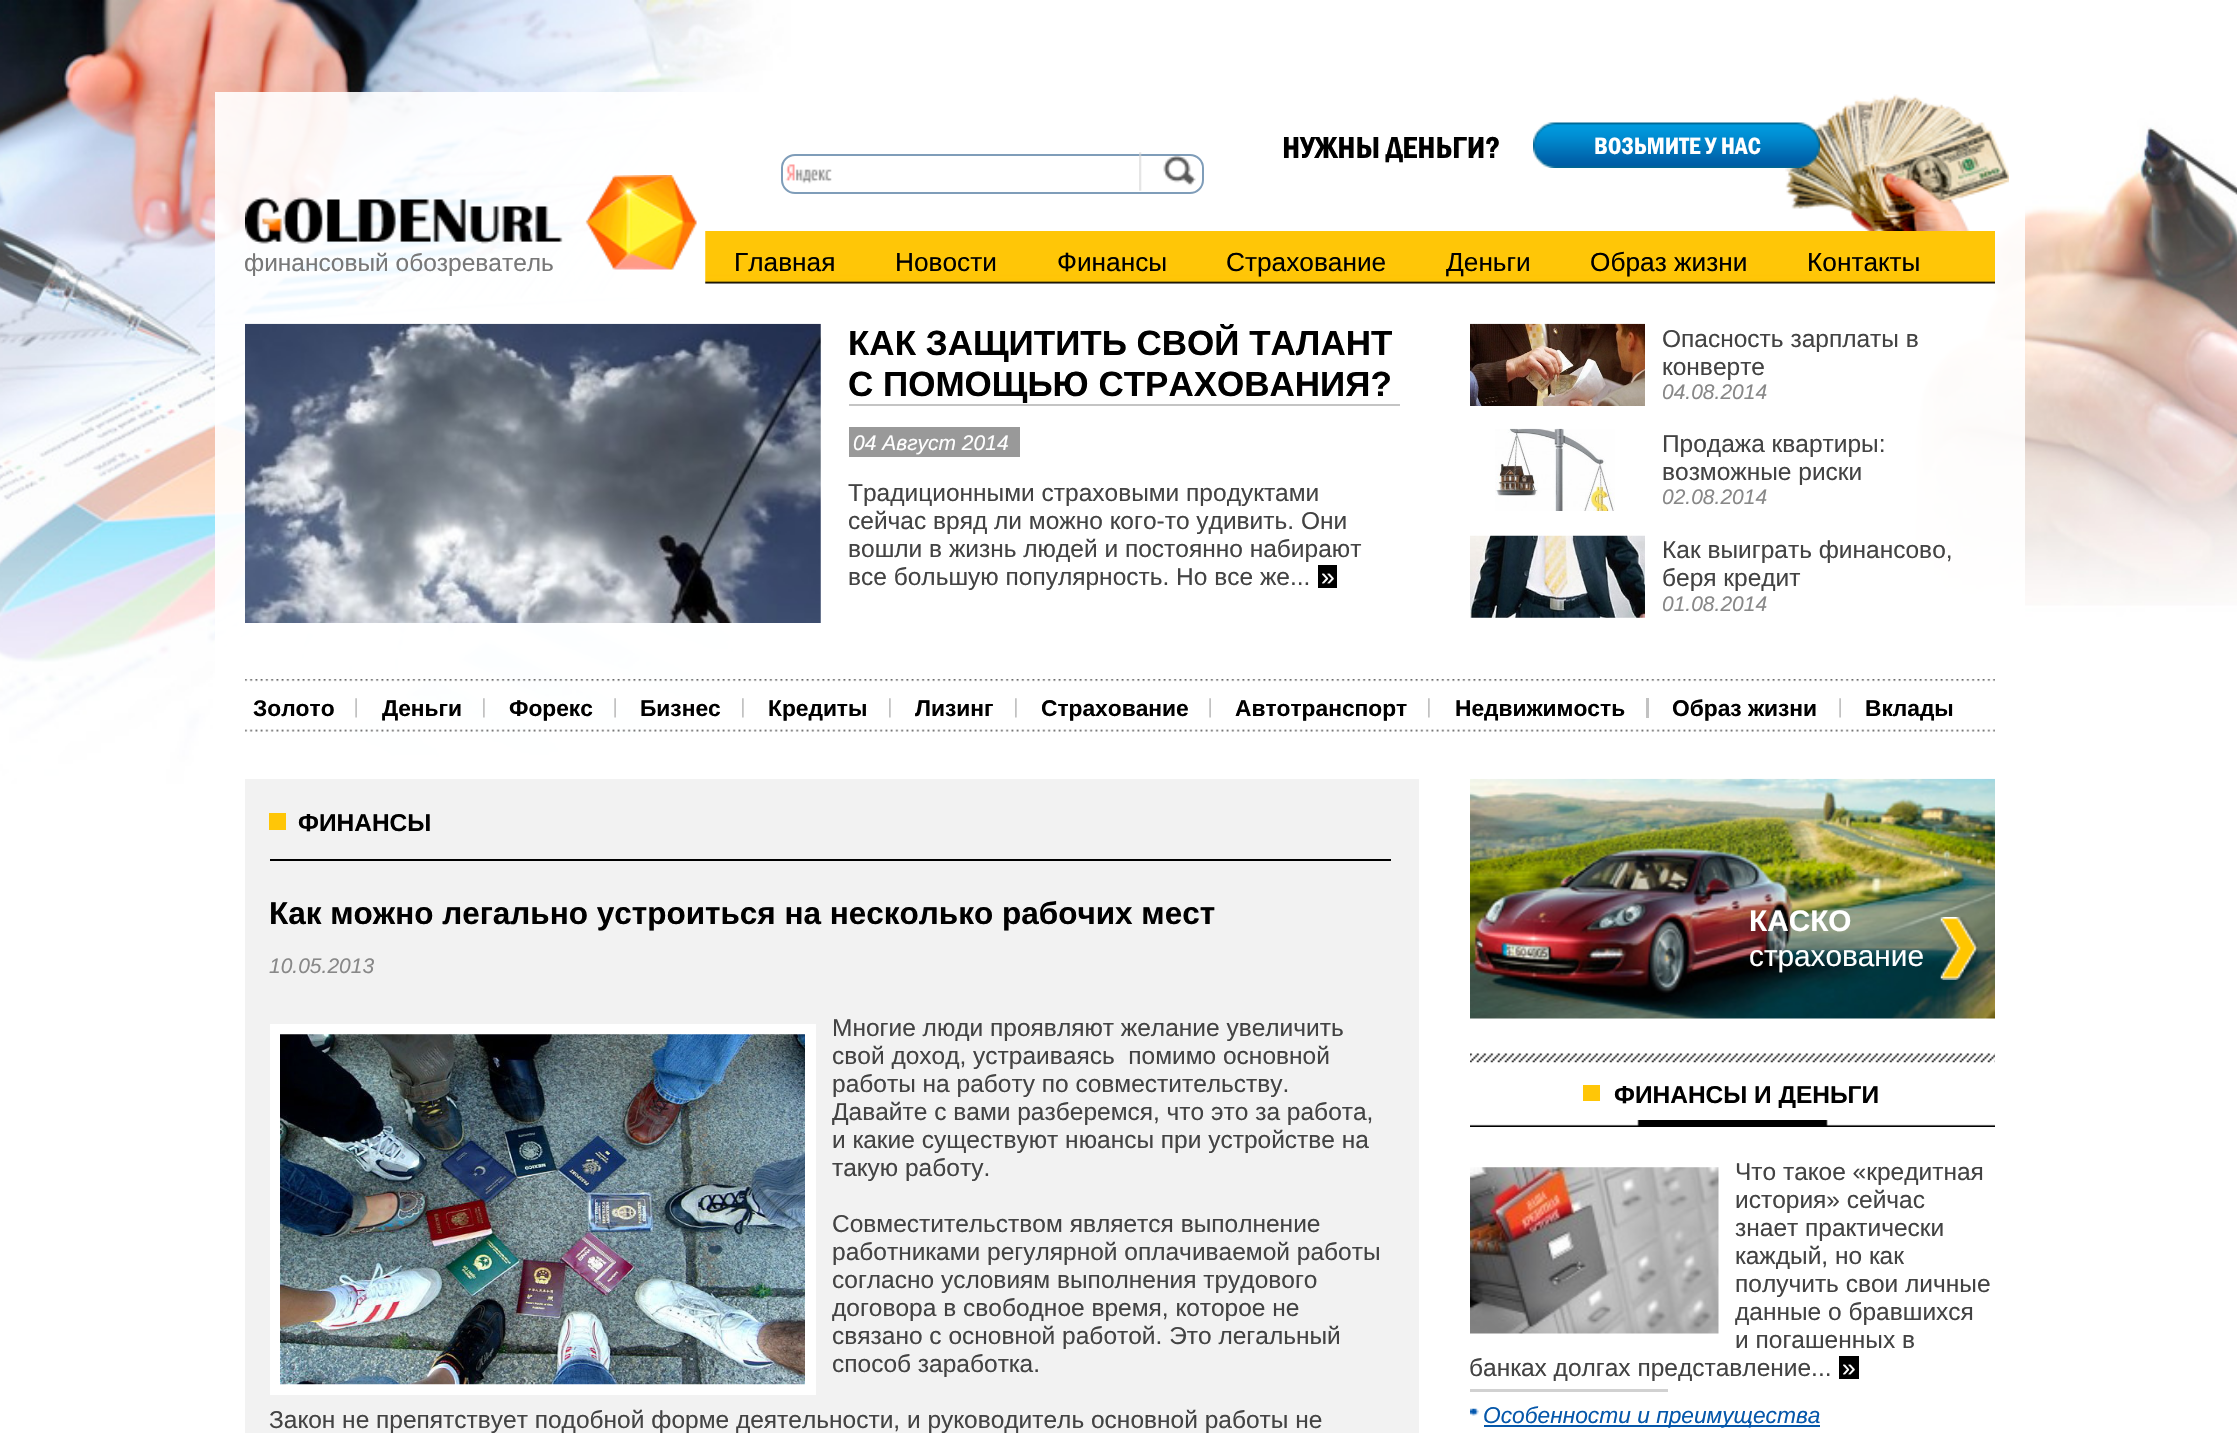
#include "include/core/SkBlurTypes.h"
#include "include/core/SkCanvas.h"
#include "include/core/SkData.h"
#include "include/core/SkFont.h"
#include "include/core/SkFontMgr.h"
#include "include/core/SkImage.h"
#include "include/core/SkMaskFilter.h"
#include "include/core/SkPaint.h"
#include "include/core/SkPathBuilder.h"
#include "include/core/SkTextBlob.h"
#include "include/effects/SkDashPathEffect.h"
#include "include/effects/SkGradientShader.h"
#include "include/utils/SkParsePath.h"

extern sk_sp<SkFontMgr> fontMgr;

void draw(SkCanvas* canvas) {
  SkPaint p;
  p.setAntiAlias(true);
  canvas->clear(SK_ColorWHITE);
  canvas->drawImageRect(SkImages::DeferredFromEncodedData(SkData::MakeFromFileName("images/1.png")), SkRect::MakeLTRB(0, 0, 2237, 784), SkSamplingOptions());
  p.setColor(SkColorSetARGB(230, 255, 255, 255));
  canvas->drawRect(SkRect::MakeLTRB(215, 92, 2025, 784), p);
  canvas->drawImageRect(SkImages::DeferredFromEncodedData(SkData::MakeFromFileName("images/2.png")), SkRect::MakeLTRB(245, 175, 697, 270), SkSamplingOptions());
  canvas->drawImageRect(SkImages::DeferredFromEncodedData(SkData::MakeFromFileName("images/4.png")), SkRect::MakeLTRB(785, 164, 832, 184), SkSamplingOptions());
  p.setStyle(SkPaint::kStroke_Style);
  p.setStrokeWidth(2);
  p.setColor(SkColorSetRGB(127, 157, 185));
  canvas->drawRoundRect(SkRect::MakeLTRB(782, 155, 1203, 193), 13, 13, p);
  canvas->drawImageRect(SkImages::DeferredFromEncodedData(SkData::MakeFromFileName("images/3.png")), SkRect::MakeLTRB(1139, 152, 1196, 191), SkSamplingOptions());
  canvas->drawImageRect(SkImages::DeferredFromEncodedData(SkData::MakeFromFileName("images/5.png")), SkRect::MakeLTRB(1785, 94, 2009, 231), SkSamplingOptions());
  canvas->drawImageRect(SkImages::DeferredFromEncodedData(SkData::MakeFromFileName("images/6.png")), SkRect::MakeLTRB(1533, 122, 1820, 168), SkSamplingOptions());
  canvas->drawImageRect(SkImages::DeferredFromEncodedData(SkData::MakeFromFileName("images/7.png")), SkRect::MakeLTRB(705, 231, 1995, 284), SkSamplingOptions());
  canvas->drawImageRect(SkImages::DeferredFromEncodedData(SkData::MakeFromFileName("images/8.png")), SkRect::MakeLTRB(245, 323, 821, 623), SkSamplingOptions());
  p.setStyle(SkPaint::kFill_Style);
  p.setColor(SkColorSetRGB(196, 196, 196));
  canvas->drawRect(SkRect::MakeLTRB(849, 404, 1400, 406), p);
  p.setColor(SkColorSetRGB(153, 153, 153));
  canvas->drawRect(SkRect::MakeLTRB(849, 427, 1020, 457), p);
  p.setColor(SK_ColorBLACK);
  canvas->drawRect(SkRect::MakeLTRB(1318, 565, 1337, 588), p);
  canvas->drawImageRect(SkImages::DeferredFromEncodedData(SkData::MakeFromFileName("images/9.png")), SkRect::MakeLTRB(1470, 323, 1645, 406), SkSamplingOptions());
  canvas->drawImageRect(SkImages::DeferredFromEncodedData(SkData::MakeFromFileName("images/10.png")), SkRect::MakeLTRB(1495, 428, 1615, 511), SkSamplingOptions());
  canvas->drawImageRect(SkImages::DeferredFromEncodedData(SkData::MakeFromFileName("images/11.png")), SkRect::MakeLTRB(1470, 535, 1645, 618), SkSamplingOptions());
  canvas->drawImageRect(SkImages::DeferredFromEncodedData(SkData::MakeFromFileName("images/12.png")), SkRect::MakeLTRB(245, 679, 1995, 732), SkSamplingOptions());
  canvas->drawImageRect(SkImages::DeferredFromEncodedData(SkData::MakeFromFileName("images/13.png")), SkRect::MakeLTRB(355, 698, 357, 718), SkSamplingOptions());
  canvas->drawImageRect(SkImages::DeferredFromEncodedData(SkData::MakeFromFileName("images/14.png")), SkRect::MakeLTRB(483, 698, 485, 718), SkSamplingOptions());
  canvas->drawImageRect(SkImages::DeferredFromEncodedData(SkData::MakeFromFileName("images/15.png")), SkRect::MakeLTRB(614, 698, 616, 718), SkSamplingOptions());
  canvas->drawImageRect(SkImages::DeferredFromEncodedData(SkData::MakeFromFileName("images/16.png")), SkRect::MakeLTRB(742, 698, 744, 718), SkSamplingOptions());
  canvas->drawImageRect(SkImages::DeferredFromEncodedData(SkData::MakeFromFileName("images/16.png")), SkRect::MakeLTRB(889, 698, 891, 718), SkSamplingOptions());
  canvas->drawImageRect(SkImages::DeferredFromEncodedData(SkData::MakeFromFileName("images/16.png")), SkRect::MakeLTRB(1015, 698, 1017, 718), SkSamplingOptions());
  canvas->drawImageRect(SkImages::DeferredFromEncodedData(SkData::MakeFromFileName("images/13.png")), SkRect::MakeLTRB(1209, 698, 1211, 718), SkSamplingOptions());
  canvas->drawImageRect(SkImages::DeferredFromEncodedData(SkData::MakeFromFileName("images/16.png")), SkRect::MakeLTRB(1428, 698, 1430, 718), SkSamplingOptions());
  p.setColor(SkColorSetRGB(194, 194, 194));
  canvas->drawRect(SkRect::MakeLTRB(1646, 698, 1649, 718), p);
  canvas->drawImageRect(SkImages::DeferredFromEncodedData(SkData::MakeFromFileName("images/13.png")), SkRect::MakeLTRB(1839, 698, 1841, 718), SkSamplingOptions());
  p.setColor(SkColorSetRGB(242, 242, 242));
  canvas->drawRect(SkRect::MakeLTRB(245, 779, 1419, 1433), p);
  p.setColor(SK_ColorBLACK);
  canvas->drawRect(SkRect::MakeLTRB(270, 859, 1391, 861), p);
  p.setColor(SkColorSetRGB(255, 198, 7));
  canvas->drawRect(SkRect::MakeLTRB(269, 813, 286, 830), p);
  p.setStyle(SkPaint::kStroke_Style);
  p.setStrokeWidth(11);
  p.setColor(SK_ColorWHITE);
  canvas->drawRect(SkRect::MakeLTRB(275.5f, 1029.5f, 810.5f, 1389.5f), p);
  canvas->drawImageRect(SkImages::DeferredFromEncodedData(SkData::MakeFromFileName("images/17.png")), SkRect::MakeLTRB(280, 1034, 805, 1385), SkSamplingOptions());
  canvas->drawImageRect(SkImages::DeferredFromEncodedData(SkData::MakeFromFileName("images/18.png")), SkRect::MakeLTRB(1470, 778, 1995, 1019), SkSamplingOptions());
  canvas->drawImageRect(SkImages::DeferredFromEncodedData(SkData::MakeFromFileName("images/19.png")), SkRect::MakeLTRB(1940, 917, 1978, 980), SkSamplingOptions());
  canvas->drawImageRect(SkImages::DeferredFromEncodedData(SkData::MakeFromFileName("images/20.png")), SkRect::MakeLTRB(1470, 1053, 1995, 1063), SkSamplingOptions());
  canvas->drawImageRect(SkImages::DeferredFromEncodedData(SkData::MakeFromFileName("images/21.png")), SkRect::MakeLTRB(1470, 1120, 1995, 1127), SkSamplingOptions());
  p.setStyle(SkPaint::kFill_Style);
  p.setColor(SkColorSetRGB(255, 198, 7));
  canvas->drawRect(SkRect::MakeLTRB(1583, 1085, 1600, 1101), p);
  canvas->drawImageRect(SkImages::DeferredFromEncodedData(SkData::MakeFromFileName("images/22.png")), SkRect::MakeLTRB(1470, 1167, 1719, 1334), SkSamplingOptions());
  p.setColor(SK_ColorBLACK);
  canvas->drawRect(SkRect::MakeLTRB(1839, 1356, 1859, 1379), p);
  p.setColor(SkColorSetRGB(209, 209, 209));
  canvas->drawRect(SkRect::MakeLTRB(1470, 1389, 1668, 1392), p);
  canvas->drawImageRect(SkImages::DeferredFromEncodedData(SkData::MakeFromFileName("images/23.png")), SkRect::MakeLTRB(1470, 1408, 1479, 1416), SkSamplingOptions());
  p.setColor(SkColorSetRGB(5, 87, 170));
  canvas->drawRect(SkRect::MakeLTRB(1484, 1425, 1820, 1427), p);
  SkFont font1(fontMgr->matchFamilyStyle("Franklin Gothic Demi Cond", SkFontStyle::Normal()), 31.5f);
  font1.setSubpixel(true);
  p.setColor(SK_ColorBLACK);
  canvas->drawString("НУЖНЫ ДЕНЬГИ?", 1282, 158, font1, p);
  SkFont font2(fontMgr->matchFamilyStyle("Franklin Gothic Demi Cond", SkFontStyle::Normal()), 24.5f);
  font2.setSubpixel(true);
  p.setColor(SK_ColorWHITE);
  canvas->drawString("ВОЗЬМИТЕ У НАС", 1594, 154, font2, p);
  SkFont font3(fontMgr->matchFamilyStyle("Liberation Sans", SkFontStyle::Normal()), 24.5f);
  font3.setSubpixel(true);
  p.setColor(SkColorSetRGB(120, 120, 120));
  canvas->drawString("финансовый обозреватель", 244, 271, font3, p);
  SkFont font4(fontMgr->matchFamilyStyle("Liberation Sans", SkFontStyle::Normal()), 26.25f);
  font4.setSubpixel(true);
  p.setColor(SK_ColorBLACK);
  canvas->drawString("Главная", 734, 271, font4, p);
  canvas->drawString("Новости", 895, 271, font4, p);
  canvas->drawString("Финансы", 1057, 271, font4, p);
  canvas->drawString("Страхование", 1226, 271, font4, p);
  canvas->drawString("Деньги", 1446, 271, font4, p);
  canvas->drawString("Образ жизни", 1590, 271, font4, p);
  canvas->drawString("Контакты", 1807, 271, font4, p);
  canvas->save();
  canvas->clipRect(SkRect::MakeLTRB(849, 324, 1400, 618));
  SkFont font5(fontMgr->matchFamilyStyle("Liberation Sans", SkFontStyle::Bold()), 35);
  font5.setSubpixel(true);
  canvas->drawString("КАК ЗАЩИТИТЬ СВОЙ ТАЛАНТ", 848, 355, font5, p);
  canvas->restore();
  canvas->drawString("С ПОМОЩЬЮ СТРАХОВАНИЯ?", 848, 396, font5, p);
  SkFont font6(fontMgr->matchFamilyStyle("Liberation Sans", SkFontStyle::Italic()), 21);
  font6.setSubpixel(true);
  p.setColor(SK_ColorWHITE);
  canvas->drawString("04 Август 2014", 853, 450, font6, p);
  p.setColor(SkColorSetRGB(67, 67, 67));
  canvas->drawString("Традиционными страховыми продуктами", 848, 501, font3, p);
  canvas->drawString("сейчас вряд ли можно кого-то удивить. Они", 848, 529, font3, p);
  canvas->drawString("вошли в жизнь людей и постоянно набирают", 848, 557, font3, p);
  canvas->drawString("все большую популярность. Но все же...", 848, 585, font3, p);
  p.setColor(SK_ColorWHITE);
  canvas->drawString("»", 1321, 585, font3, p);
  canvas->save();
  canvas->clipRect(SkRect::MakeLTRB(1663, 324, 1993, 406));
  p.setColor(SkColorSetRGB(67, 67, 67));
  canvas->drawString("Опасность зарплаты в", 1662, 347, font3, p);
  canvas->restore();
  canvas->drawString("конверте", 1662, 375, font3, p);
  canvas->save();
  canvas->clipRect(SkRect::MakeLTRB(1663, 324, 1993, 406));
  p.setColor(SkColorSetRGB(136, 136, 136));
  canvas->drawString("04.08.2014", 1662, 399, font6, p);
  canvas->restore();
  p.setColor(SkColorSetRGB(67, 67, 67));
  canvas->drawString("Продажа квартиры:", 1662, 452, font3, p);
  canvas->drawString("возможные риски", 1662, 480, font3, p);
  canvas->save();
  canvas->clipRect(SkRect::MakeLTRB(1663, 429, 1993, 511));
  p.setColor(SkColorSetRGB(136, 136, 136));
  canvas->drawString("02.08.2014", 1662, 504, font6, p);
  canvas->restore();
  p.setColor(SkColorSetRGB(67, 67, 67));
  canvas->drawString("Как выиграть финансово,", 1662, 558, font3, p);
  canvas->drawString("беря кредит", 1662, 586, font3, p);
  canvas->save();
  canvas->clipRect(SkRect::MakeLTRB(1663, 536, 1993, 618));
  p.setColor(SkColorSetRGB(136, 136, 136));
  canvas->drawString("01.08.2014", 1662, 611, font6, p);
  canvas->restore();
  SkFont font7(fontMgr->matchFamilyStyle("Liberation Sans", SkFontStyle::Bold()), 22.75f);
  font7.setSubpixel(true);
  p.setColor(SK_ColorBLACK);
  canvas->drawString("Золото", 253, 716, font7, p);
  canvas->drawString("Деньги", 382, 716, font7, p);
  canvas->drawString("Форекс", 509, 716, font7, p);
  canvas->drawString("Бизнес", 640, 716, font7, p);
  canvas->drawString("Кредиты", 768, 716, font7, p);
  canvas->drawString("Лизинг", 915, 716, font7, p);
  canvas->drawString("Страхование", 1041, 716, font7, p);
  canvas->drawString("Автотранспорт", 1235, 716, font7, p);
  canvas->drawString("Недвижимость", 1455, 716, font7, p);
  canvas->drawString("Образ жизни", 1672, 716, font7, p);
  canvas->drawString("Вклады", 1865, 716, font7, p);
  SkFont font8(fontMgr->matchFamilyStyle("Liberation Sans", SkFontStyle::Bold()), 24.5f);
  font8.setSubpixel(true);
  canvas->drawString("ФИНАНСЫ", 298, 831, font8, p);
  SkFont font9(fontMgr->matchFamilyStyle("Liberation Sans", SkFontStyle::Bold()), 31.5f);
  font9.setSubpixel(true);
  canvas->drawString("Как можно легально устроиться на несколько рабочих мест", 269, 924, font9, p);
  p.setColor(SkColorSetRGB(136, 136, 136));
  canvas->drawString("10.05.2013", 269, 973, font6, p);
  p.setColor(SkColorSetRGB(67, 67, 67));
  canvas->drawString("Многие люди проявляют желание увеличить", 832, 1036, font3, p);
  canvas->drawString("свой доход, устраиваясь  помимо основной", 832, 1064, font3, p);
  canvas->drawString("работы на работу по совместительству.", 832, 1092, font3, p);
  canvas->drawString("Давайте с вами разберемся, что это за работа,", 832, 1120, font3, p);
  canvas->drawString("и какие существуют нюансы при устройстве на", 832, 1148, font3, p);
  canvas->drawString("такую работу.", 832, 1176, font3, p);
  canvas->drawString("Совместительством является выполнение", 832, 1232, font3, p);
  canvas->drawString("работниками регулярной оплачиваемой работы", 832, 1260, font3, p);
  canvas->drawString("согласно условиям выполнения трудового", 832, 1288, font3, p);
  canvas->drawString("договора в свободное время, которое не", 832, 1316, font3, p);
  canvas->drawString("связано с основной работой. Это легальный", 832, 1344, font3, p);
  canvas->drawString("способ заработка.", 832, 1372, font3, p);
  canvas->drawString("Закон не препятствует подобной форме деятельности, и руководитель основной работы не", 269, 1428, font3, p);
  SkFont font10(fontMgr->matchFamilyStyle("Liberation Sans", SkFontStyle::Bold()), 29.75f);
  font10.setSubpixel(true);
  p.setColor(SK_ColorWHITE);
  canvas->drawString("КАСКО", 1749, 931, font10, p);
  SkFont font11(fontMgr->matchFamilyStyle("Liberation Sans", SkFontStyle::Normal()), 29.75f);
  font11.setSubpixel(true);
  canvas->drawString("страхование", 1749, 966, font11, p);
  p.setColor(SK_ColorBLACK);
  canvas->drawString("ФИНАНСЫ И ДЕНЬГИ", 1614, 1103, font8, p);
  p.setColor(SkColorSetRGB(67, 67, 67));
  canvas->drawString("Что такое «кредитная", 1735, 1180, font3, p);
  canvas->drawString("история» сейчас", 1735, 1208, font3, p);
  canvas->drawString("знает практически", 1735, 1236, font3, p);
  canvas->drawString("каждый, но как", 1735, 1264, font3, p);
  canvas->drawString("получить свои личные", 1735, 1292, font3, p);
  canvas->drawString("данные о бравшихся", 1735, 1320, font3, p);
  canvas->drawString("и погашенных в", 1735, 1348, font3, p);
  canvas->drawString("банках долгах представление...", 1469, 1376, font3, p);
  p.setColor(SK_ColorWHITE);
  canvas->drawString("»", 1842, 1376, font3, p);
  SkFont font12(fontMgr->matchFamilyStyle("Liberation Sans", SkFontStyle::Italic()), 22.75f);
  font12.setSubpixel(true);
  p.setColor(SkColorSetRGB(5, 87, 170));
  canvas->drawString("Особенности и преимущества", 1483, 1423, font12, p);
}
